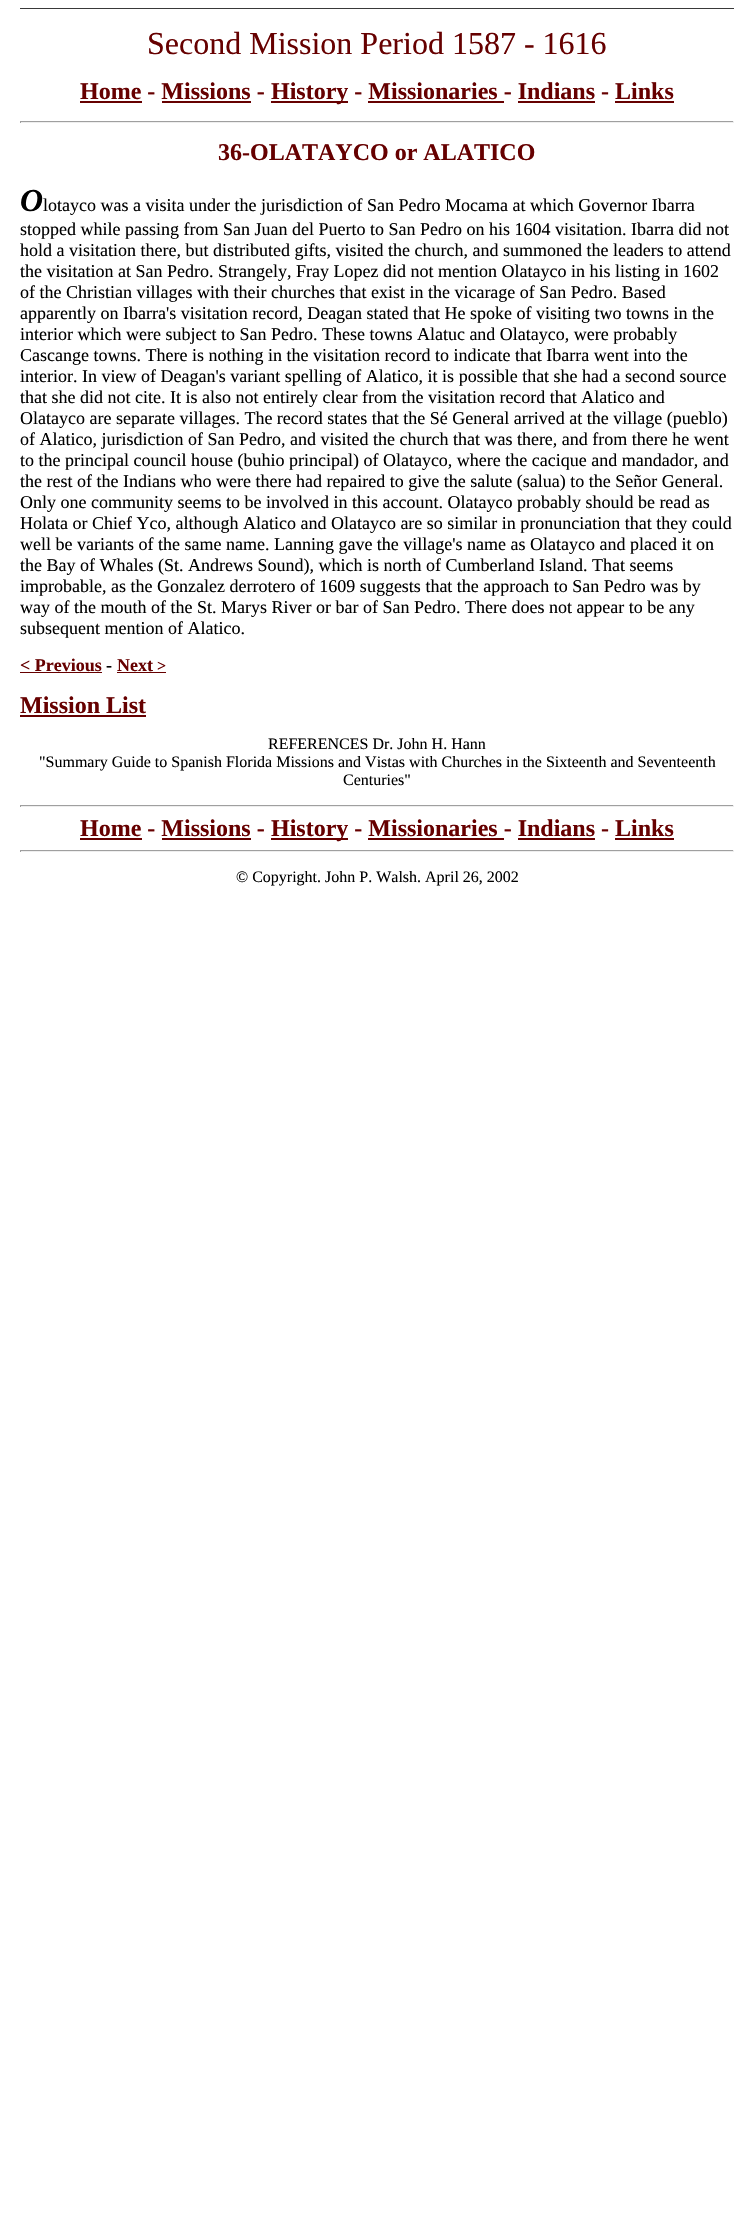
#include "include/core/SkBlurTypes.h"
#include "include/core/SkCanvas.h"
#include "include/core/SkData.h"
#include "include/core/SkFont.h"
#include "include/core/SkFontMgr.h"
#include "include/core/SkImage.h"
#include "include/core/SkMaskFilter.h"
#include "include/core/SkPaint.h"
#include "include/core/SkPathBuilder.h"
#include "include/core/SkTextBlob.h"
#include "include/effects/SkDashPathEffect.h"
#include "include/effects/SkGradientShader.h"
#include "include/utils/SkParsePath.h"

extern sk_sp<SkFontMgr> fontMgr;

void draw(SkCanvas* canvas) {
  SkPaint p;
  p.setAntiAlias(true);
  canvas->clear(SK_ColorWHITE);
  p.setColor(SkColorSetRGB(57, 57, 57));
  canvas->drawRect(SkRect::MakeLTRB(20, 8, 734, 9), p);
  p.setColor(SkColorSetRGB(102, 0, 0));
  canvas->drawRect(SkRect::MakeLTRB(80, 101, 142, 103), p);
  canvas->drawRect(SkRect::MakeLTRB(162, 101, 251, 103), p);
  canvas->drawRect(SkRect::MakeLTRB(271, 101, 348, 103), p);
  canvas->drawRect(SkRect::MakeLTRB(368, 101, 504, 103), p);
  canvas->drawRect(SkRect::MakeLTRB(518, 101, 595, 103), p);
  canvas->drawRect(SkRect::MakeLTRB(615, 101, 674, 103), p);
  p.setColor(SkColorSetRGB(159, 159, 159));
  canvas->drawRect(SkRect::MakeLTRB(20, 121, 734, 122), p);
  p.setColor(SkColorSetRGB(238, 238, 238));
  canvas->drawRect(SkRect::MakeLTRB(733, 121, 734, 123), p);
  canvas->drawRect(SkRect::MakeLTRB(20, 122, 734, 123), p);
  p.setColor(SkColorSetRGB(159, 159, 159));
  canvas->drawRect(SkRect::MakeLTRB(20, 121, 21, 123), p);
  p.setColor(SkColorSetRGB(102, 0, 0));
  canvas->drawRect(SkRect::MakeLTRB(20, 672, 102, 673), p);
  canvas->drawRect(SkRect::MakeLTRB(117, 672, 166, 673), p);
  canvas->drawRect(SkRect::MakeLTRB(20, 715, 146, 717), p);
  p.setColor(SkColorSetRGB(159, 159, 159));
  canvas->drawRect(SkRect::MakeLTRB(20, 805, 734, 806), p);
  p.setColor(SkColorSetRGB(238, 238, 238));
  canvas->drawRect(SkRect::MakeLTRB(733, 805, 734, 807), p);
  canvas->drawRect(SkRect::MakeLTRB(20, 806, 734, 807), p);
  p.setColor(SkColorSetRGB(159, 159, 159));
  canvas->drawRect(SkRect::MakeLTRB(20, 805, 21, 807), p);
  p.setColor(SkColorSetRGB(102, 0, 0));
  canvas->drawRect(SkRect::MakeLTRB(80, 838, 142, 840), p);
  canvas->drawRect(SkRect::MakeLTRB(162, 838, 251, 840), p);
  canvas->drawRect(SkRect::MakeLTRB(271, 838, 348, 840), p);
  canvas->drawRect(SkRect::MakeLTRB(368, 838, 504, 840), p);
  canvas->drawRect(SkRect::MakeLTRB(518, 838, 595, 840), p);
  canvas->drawRect(SkRect::MakeLTRB(615, 838, 674, 840), p);
  p.setColor(SkColorSetRGB(159, 159, 159));
  canvas->drawRect(SkRect::MakeLTRB(20, 850, 734, 851), p);
  p.setColor(SkColorSetRGB(238, 238, 238));
  canvas->drawRect(SkRect::MakeLTRB(733, 850, 734, 852), p);
  canvas->drawRect(SkRect::MakeLTRB(20, 851, 734, 852), p);
  p.setColor(SkColorSetRGB(159, 159, 159));
  canvas->drawRect(SkRect::MakeLTRB(20, 850, 21, 852), p);
  SkFont font1(fontMgr->matchFamilyStyle("Liberation Serif", SkFontStyle::Normal()), 32);
  font1.setSubpixel(true);
  p.setColor(SkColorSetRGB(102, 0, 0));
  canvas->drawString("Second Mission Period 1587 - 1616", 147, 54, font1, p);
  SkFont font2(fontMgr->matchFamilyStyle("Liberation Serif", SkFontStyle::Bold()), 24);
  font2.setSubpixel(true);
  canvas->drawString("Home - Missions -", 80, 99, font2, p);
  canvas->drawString("History - Missionaries - Indians - Links", 271, 99, font2, p);
  canvas->drawString("36-OLATAYCO or ALATICO", 218, 160, font2, p);
  SkFont font3(fontMgr->matchFamilyStyle("Liberation Serif", SkFontStyle::BoldItalic()), 32);
  font3.setSubpixel(true);
  p.setColor(SK_ColorBLACK);
  canvas->drawString("O", 20, 211, font3, p);
  SkFont font4(fontMgr->matchFamilyStyle("Liberation Serif", SkFontStyle::Normal()), 18);
  font4.setSubpixel(true);
  canvas->drawString("lotayco was a visita under the jurisdiction of San Pedro Mocama at which Governor Ibarra", 43, 211, font4, p);
  canvas->drawString("stopped while passing from San Juan del Puerto to San Pedro on his 1604 visitation. Ibarra did not", 20, 235, font4, p);
  canvas->drawString("hold a visitation there, but distributed gifts, visited the church, and summoned the leaders to attend", 20, 256, font4, p);
  canvas->drawString("the visitation at San Pedro. Strangely, Fray Lopez did not mention Olatayco in his listing in 1602", 20, 277, font4, p);
  canvas->drawString("of the Christian villages with their churches that exist in the vicarage of San Pedro. Based", 20, 298, font4, p);
  canvas->drawString("apparently on Ibarra's visitation record, Deagan stated that He spoke of visiting two towns in the", 20, 319, font4, p);
  canvas->drawString("interior which were subject to San Pedro. These towns Alatuc and Olatayco, were probably", 20, 340, font4, p);
  canvas->drawString("Cascange towns. There is nothing in the visitation record to indicate that Ibarra went into the", 20, 361, font4, p);
  canvas->drawString("interior. In view of Deagan's variant spelling of Alatico, it is possible that she had a second source", 20, 382, font4, p);
  canvas->drawString("that she did not cite. It is also not entirely clear from the visitation record that Alatico and", 20, 403, font4, p);
  canvas->drawString("Olatayco are separate villages. The record states that the Sé General arrived at the village (pueblo)", 20, 424, font4, p);
  canvas->drawString("of Alatico, jurisdiction of San Pedro, and visited the church that was there, and from there he went", 20, 445, font4, p);
  canvas->drawString("to the principal council house (buhio principal) of Olatayco, where the cacique and mandador, and", 20, 466, font4, p);
  canvas->drawString("the rest of the Indians who were there had repaired to give the salute (salua) to the Señor General.", 20, 487, font4, p);
  canvas->drawString("Only one community seems to be involved in this account. Olatayco probably should be read as", 20, 508, font4, p);
  canvas->drawString("Holata or Chief Yco, although Alatico and Olatayco are so similar in pronunciation that they could", 20, 529, font4, p);
  canvas->drawString("well be variants of the same name. Lanning gave the village's name as Olatayco and placed it on", 20, 550, font4, p);
  canvas->drawString("the Bay of Whales (St. Andrews Sound), which is north of Cumberland Island. That seems", 20, 571, font4, p);
  canvas->drawString("improbable, as the Gonzalez derrotero of 1609 suggests that the approach to San Pedro was by", 20, 592, font4, p);
  canvas->drawString("way of the mouth of the St. Marys River or bar of San Pedro. There does not appear to be any", 20, 613, font4, p);
  canvas->drawString("subsequent mention of Alatico.", 20, 634, font4, p);
  SkFont font5(fontMgr->matchFamilyStyle("Liberation Serif", SkFontStyle::Bold()), 18);
  font5.setSubpixel(true);
  p.setColor(SkColorSetRGB(102, 0, 0));
  canvas->drawString("< Previous", 20, 671, font5, p);
  p.setColor(SK_ColorBLACK);
  canvas->drawString("-", 106, 671, font5, p);
  p.setColor(SkColorSetRGB(102, 0, 0));
  canvas->drawString("Next", 117, 671, font5, p);
  SkFont font6(fontMgr->matchFamilyStyle("Liberation Serif", SkFontStyle::Bold()), 16);
  font6.setSubpixel(true);
  canvas->drawString(">", 157, 671, font6, p);
  canvas->drawString("Mission List", 20, 713, font2, p);
  SkFont font7(fontMgr->matchFamilyStyle("Liberation Serif", SkFontStyle::Normal()), 16);
  font7.setSubpixel(true);
  p.setColor(SK_ColorBLACK);
  canvas->drawString("REFERENCES Dr. John H. Hann", 268, 749, font7, p);
  canvas->drawString("\"Summary Guide to Spanish Florida Missions and Vistas with Churches in the Sixteenth and Seventeenth", 39, 767, font7, p);
  canvas->drawString("Centuries\"", 343, 785, font7, p);
  p.setColor(SkColorSetRGB(102, 0, 0));
  canvas->drawString("Home - Missions -", 80, 836, font2, p);
  canvas->drawString("History - Missionaries - Indians - Links", 271, 836, font2, p);
  p.setColor(SK_ColorBLACK);
  canvas->drawString("© Copyright. John P. Walsh. April 26, 2002", 236, 882, font7, p);
}
